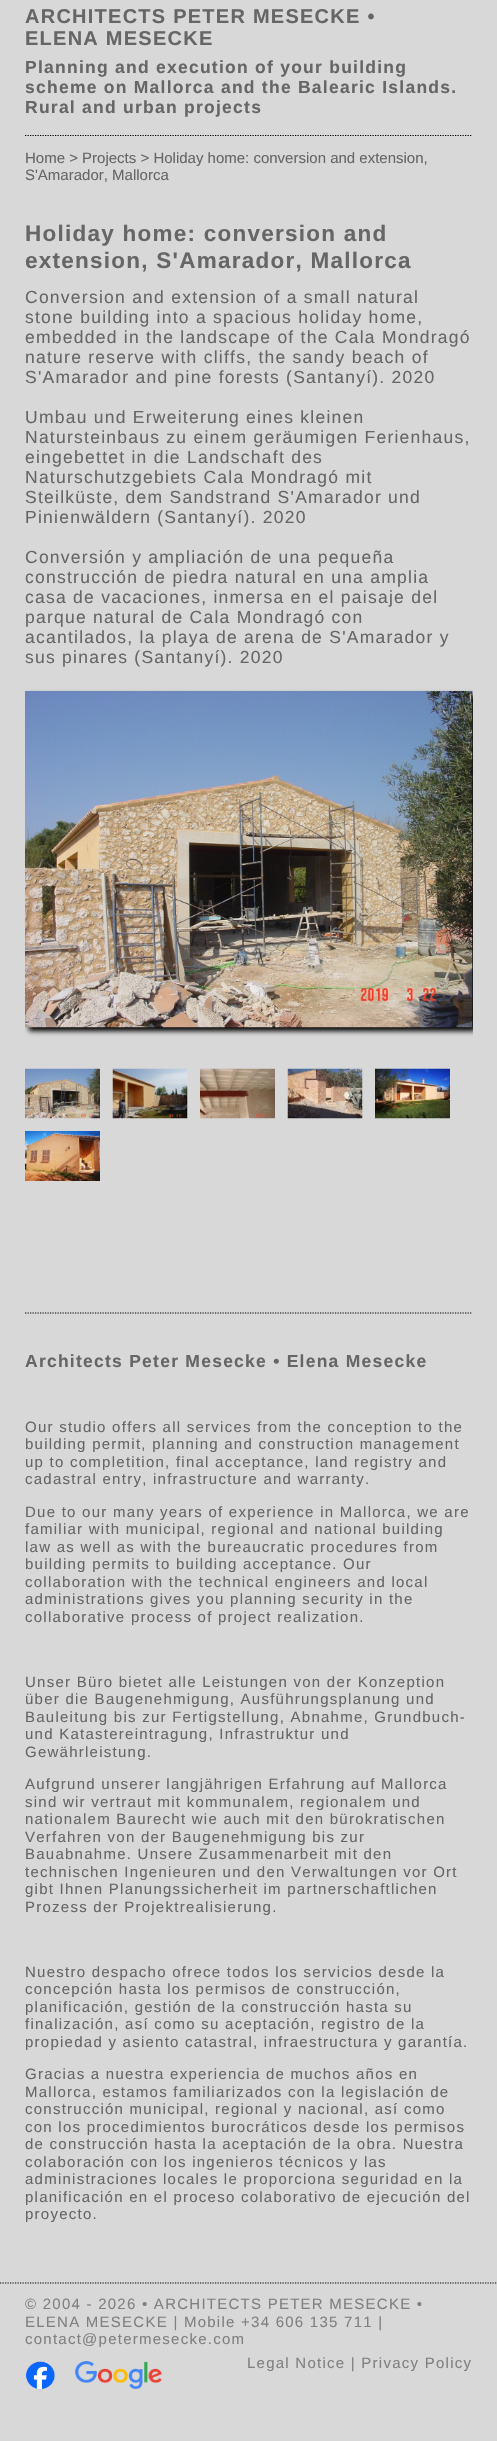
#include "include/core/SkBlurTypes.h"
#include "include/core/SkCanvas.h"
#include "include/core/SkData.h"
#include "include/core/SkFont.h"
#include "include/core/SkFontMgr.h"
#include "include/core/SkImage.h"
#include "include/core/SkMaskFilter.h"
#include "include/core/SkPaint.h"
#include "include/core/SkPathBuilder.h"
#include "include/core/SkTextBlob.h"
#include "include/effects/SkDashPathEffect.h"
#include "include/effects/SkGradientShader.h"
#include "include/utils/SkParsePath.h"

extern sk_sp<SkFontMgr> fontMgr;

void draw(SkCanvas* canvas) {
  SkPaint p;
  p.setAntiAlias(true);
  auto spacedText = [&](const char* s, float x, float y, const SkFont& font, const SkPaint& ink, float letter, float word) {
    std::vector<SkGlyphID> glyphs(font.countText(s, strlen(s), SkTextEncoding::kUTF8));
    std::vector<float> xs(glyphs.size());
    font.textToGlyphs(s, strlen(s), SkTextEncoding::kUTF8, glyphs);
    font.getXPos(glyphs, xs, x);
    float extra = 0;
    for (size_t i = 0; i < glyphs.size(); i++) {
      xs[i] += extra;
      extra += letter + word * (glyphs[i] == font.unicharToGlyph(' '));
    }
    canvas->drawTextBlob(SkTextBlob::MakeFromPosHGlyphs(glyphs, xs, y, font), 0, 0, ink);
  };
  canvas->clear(SkColorSetRGB(216, 216, 216));
  p.setStyle(SkPaint::kStroke_Style);
  p.setStrokeWidth(1.2f);
  p.setColor(SK_ColorBLACK);
  p.setPathEffect(SkDashPathEffect::Make({{1.25f, 1.25f}}, 0));
  canvas->drawPath(SkPathBuilder().moveTo(25, 135.5f).lineTo(472.5f, 135.5f).detach(), p);
  p.setPathEffect(nullptr);
  canvas->save();
  canvas->clipRect(SkRect::MakeLTRB(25, 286, 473, 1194));
  p.setStyle(SkPaint::kFill_Style);
  p.setMaskFilter(SkMaskFilter::MakeBlur(kNormal_SkBlurStyle, 2.5f));
  canvas->drawRect(SkRect::MakeLTRB(29, 695, 476, 1031), p);
  p.setMaskFilter(nullptr);
  canvas->restore();
  canvas->drawImageRect(SkImages::DeferredFromEncodedData(SkData::MakeFromFileName("images/1.png")), SkRect::MakeLTRB(25, 691, 473, 1028), SkSamplingOptions());
  canvas->drawImageRect(SkImages::DeferredFromEncodedData(SkData::MakeFromFileName("images/2.png")), SkRect::MakeLTRB(25, 1068, 100, 1119), SkSamplingOptions());
  canvas->drawImageRect(SkImages::DeferredFromEncodedData(SkData::MakeFromFileName("images/3.png")), SkRect::MakeLTRB(112, 1068, 188, 1119), SkSamplingOptions());
  canvas->drawImageRect(SkImages::DeferredFromEncodedData(SkData::MakeFromFileName("images/4.png")), SkRect::MakeLTRB(200, 1068, 275, 1119), SkSamplingOptions());
  canvas->drawImageRect(SkImages::DeferredFromEncodedData(SkData::MakeFromFileName("images/5.png")), SkRect::MakeLTRB(287, 1068, 363, 1119), SkSamplingOptions());
  canvas->drawImageRect(SkImages::DeferredFromEncodedData(SkData::MakeFromFileName("images/6.png")), SkRect::MakeLTRB(375, 1068, 450, 1119), SkSamplingOptions());
  canvas->drawImageRect(SkImages::DeferredFromEncodedData(SkData::MakeFromFileName("images/7.png")), SkRect::MakeLTRB(25, 1131, 100, 1181), SkSamplingOptions());
  p.setStyle(SkPaint::kStroke_Style);
  p.setPathEffect(SkDashPathEffect::Make({{1.25f, 1.25f}}, 0));
  canvas->drawPath(SkPathBuilder().moveTo(25, 1313).lineTo(472.5f, 1313).detach(), p);
  p.setPathEffect(nullptr);
  p.setPathEffect(SkDashPathEffect::Make({{1.25f, 1.25f}}, 0));
  canvas->drawPath(SkPathBuilder().moveTo(0, 2283).lineTo(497.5f, 2283).detach(), p);
  p.setPathEffect(nullptr);
  canvas->drawImageRect(SkImages::DeferredFromEncodedData(SkData::MakeFromFileName("images/8.png")), SkRect::MakeLTRB(25, 2361, 55, 2390), SkSamplingOptions());
  canvas->drawImageRect(SkImages::DeferredFromEncodedData(SkData::MakeFromFileName("images/9.png")), SkRect::MakeLTRB(75, 2361, 162, 2389), SkSamplingOptions());
  SkFont font1(fontMgr->matchFamilyStyle("Liberation Sans", SkFontStyle::Bold()), 20);
  font1.setSubpixel(true);
  p.setStyle(SkPaint::kFill_Style);
  p.setColor(SkColorSetRGB(102, 102, 102));
  spacedText("ARCHITECTS PETER MESECKE •", 25, 23, font1, p, 1.25f, 0);
  spacedText("ELENA MESECKE", 25, 45, font1, p, 1.25f, 0);
  SkFont font2(fontMgr->matchFamilyStyle("Liberation Sans", SkFontStyle::Bold()), 17.5f);
  font2.setSubpixel(true);
  spacedText("Planning and execution of your building", 25, 73, font2, p, 1.25f, 0);
  spacedText("scheme on Mallorca and the Balearic Islands.", 25, 93, font2, p, 1.25f, 0);
  spacedText("Rural and urban projects", 25, 113, font2, p, 1.25f, 0);
  SkFont font3(fontMgr->matchFamilyStyle("Liberation Sans", SkFontStyle::Normal()), 15);
  font3.setSubpixel(true);
  canvas->drawString("Home > Projects > Holiday home: conversion and extension,", 25, 163, font3, p);
  canvas->drawString("S'Amarador, Mallorca", 25, 180, font3, p);
  SkFont font4(fontMgr->matchFamilyStyle("Liberation Sans", SkFontStyle::Bold()), 22.5f);
  font4.setSubpixel(true);
  spacedText("Holiday home: conversion and", 25, 241, font4, p, 1.25f, 0);
  spacedText("extension, S'Amarador, Mallorca", 25, 268, font4, p, 1.25f, 0);
  SkFont font5(fontMgr->matchFamilyStyle("Liberation Sans", SkFontStyle::Normal()), 17.5f);
  font5.setSubpixel(true);
  spacedText("Conversion and extension of a small natural", 25, 303, font5, p, 1.25f, 0);
  spacedText("stone building into a spacious holiday home,", 25, 323, font5, p, 1.25f, 0);
  spacedText("embedded in the landscape of the Cala Mondragó", 25, 343, font5, p, 1.25f, 0);
  spacedText("nature reserve with cliffs, the sandy beach of", 25, 363, font5, p, 1.25f, 0);
  spacedText("S'Amarador and pine forests (Santanyí). 2020", 25, 383, font5, p, 1.25f, 0);
  spacedText("Umbau und Erweiterung eines kleinen", 25, 423, font5, p, 1.25f, 0);
  spacedText("Natursteinbaus zu einem geräumigen Ferienhaus,", 25, 443, font5, p, 1.25f, 0);
  spacedText("eingebettet in die Landschaft des", 25, 463, font5, p, 1.25f, 0);
  spacedText("Naturschutzgebiets Cala Mondragó mit", 25, 483, font5, p, 1.25f, 0);
  spacedText("Steilküste, dem Sandstrand S'Amarador und", 25, 503, font5, p, 1.25f, 0);
  spacedText("Pinienwäldern (Santanyí). 2020", 25, 523, font5, p, 1.25f, 0);
  spacedText("Conversión y ampliación de una pequeña", 25, 563, font5, p, 1.25f, 0);
  spacedText("construcción de piedra natural en una amplia", 25, 583, font5, p, 1.25f, 0);
  spacedText("casa de vacaciones, inmersa en el paisaje del", 25, 603, font5, p, 1.25f, 0);
  spacedText("parque natural de Cala Mondragó con", 25, 623, font5, p, 1.25f, 0);
  spacedText("acantilados, la playa de arena de S'Amarador y", 25, 643, font5, p, 1.25f, 0);
  spacedText("sus pinares (Santanyí). 2020", 25, 663, font5, p, 1.25f, 0);
  spacedText("Architects Peter Mesecke • Elena Mesecke", 25, 1367, font2, p, 1.25f, 0);
  spacedText("Our studio offers all services from the conception to the", 25, 1432, font3, p, 1.25f, 0);
  spacedText("building permit, planning and construction management", 25, 1449, font3, p, 1.25f, 0);
  spacedText("up to completition, final acceptance, land registry and", 25, 1467, font3, p, 1.25f, 0);
  spacedText("cadastral entry, infrastructure and warranty.", 25, 1484, font3, p, 1.25f, 0);
  spacedText("Due to our many years of experience in Mallorca, we are", 25, 1517, font3, p, 1.25f, 0);
  spacedText("familiar with municipal, regional and national building", 25, 1534, font3, p, 1.25f, 0);
  spacedText("law as well as with the bureaucratic procedures from", 25, 1552, font3, p, 1.25f, 0);
  spacedText("building permits to building acceptance. Our", 25, 1569, font3, p, 1.25f, 0);
  spacedText("collaboration with the technical engineers and local", 25, 1587, font3, p, 1.25f, 0);
  spacedText("administrations gives you planning security in the", 25, 1604, font3, p, 1.25f, 0);
  spacedText("collaborative process of project realization.", 25, 1622, font3, p, 1.25f, 0);
  spacedText("Unser Büro bietet alle Leistungen von der Konzeption", 25, 1687, font3, p, 1.25f, 0);
  spacedText("über die Baugenehmigung, Ausführungsplanung und", 25, 1704, font3, p, 1.25f, 0);
  spacedText("Bauleitung bis zur Fertigstellung, Abnahme, Grundbuch-", 25, 1722, font3, p, 1.25f, 0);
  spacedText("und Katastereintragung, Infrastruktur und", 25, 1739, font3, p, 1.25f, 0);
  spacedText("Gewährleistung.", 25, 1757, font3, p, 1.25f, 0);
  spacedText("Aufgrund unserer langjährigen Erfahrung auf Mallorca", 25, 1789, font3, p, 1.25f, 0);
  spacedText("sind wir vertraut mit kommunalem, regionalem und", 25, 1807, font3, p, 1.25f, 0);
  spacedText("nationalem Baurecht wie auch mit den bürokratischen", 25, 1824, font3, p, 1.25f, 0);
  spacedText("Verfahren von der Baugenehmigung bis zur", 25, 1842, font3, p, 1.25f, 0);
  spacedText("Bauabnahme. Unsere Zusammenarbeit mit den", 25, 1859, font3, p, 1.25f, 0);
  spacedText("technischen Ingenieuren und den Verwaltungen vor Ort", 25, 1877, font3, p, 1.25f, 0);
  spacedText("gibt Ihnen Planungssicherheit im partnerschaftlichen", 25, 1894, font3, p, 1.25f, 0);
  spacedText("Prozess der Projektrealisierung.", 25, 1912, font3, p, 1.25f, 0);
  spacedText("Nuestro despacho ofrece todos los servicios desde la", 25, 1977, font3, p, 1.25f, 0);
  spacedText("concepción hasta los permisos de construcción,", 25, 1994, font3, p, 1.25f, 0);
  spacedText("planificación, gestión de la construcción hasta su", 25, 2012, font3, p, 1.25f, 0);
  spacedText("finalización, así como su aceptación, registro de la", 25, 2029, font3, p, 1.25f, 0);
  spacedText("propiedad y asiento catastral, infraestructura y garantía.", 25, 2047, font3, p, 1.25f, 0);
  spacedText("Gracias a nuestra experiencia de muchos años en", 25, 2079, font3, p, 1.25f, 0);
  spacedText("Mallorca, estamos familiarizados con la legislación de", 25, 2097, font3, p, 1.25f, 0);
  spacedText("construcción municipal, regional y nacional, así como", 25, 2114, font3, p, 1.25f, 0);
  spacedText("con los procedimientos burocráticos desde los permisos", 25, 2132, font3, p, 1.25f, 0);
  spacedText("de construcción hasta la aceptación de la obra. Nuestra", 25, 2149, font3, p, 1.25f, 0);
  spacedText("colaboración con los ingenieros técnicos y las", 25, 2167, font3, p, 1.25f, 0);
  spacedText("administraciones locales le proporciona seguridad en la", 25, 2184, font3, p, 1.25f, 0);
  spacedText("planificación en el proceso colaborativo de ejecución del", 25, 2202, font3, p, 1.25f, 0);
  spacedText("proyecto.", 25, 2219, font3, p, 1.25f, 0);
  p.setColor(SkColorSetRGB(128, 128, 128));
  spacedText("© 2004 - 2026 • ARCHITECTS PETER MESECKE •", 25, 2309, font3, p, 1.25f, 0);
  spacedText("ELENA MESECKE | Mobile +34 606 135 711 |", 25, 2327, font3, p, 1.25f, 0);
  spacedText("contact@petermesecke.com", 25, 2344, font3, p, 1.25f, 0);
  spacedText("Legal Notice | Privacy Policy", 247, 2368, font3, p, 1.25f, 0);
}
